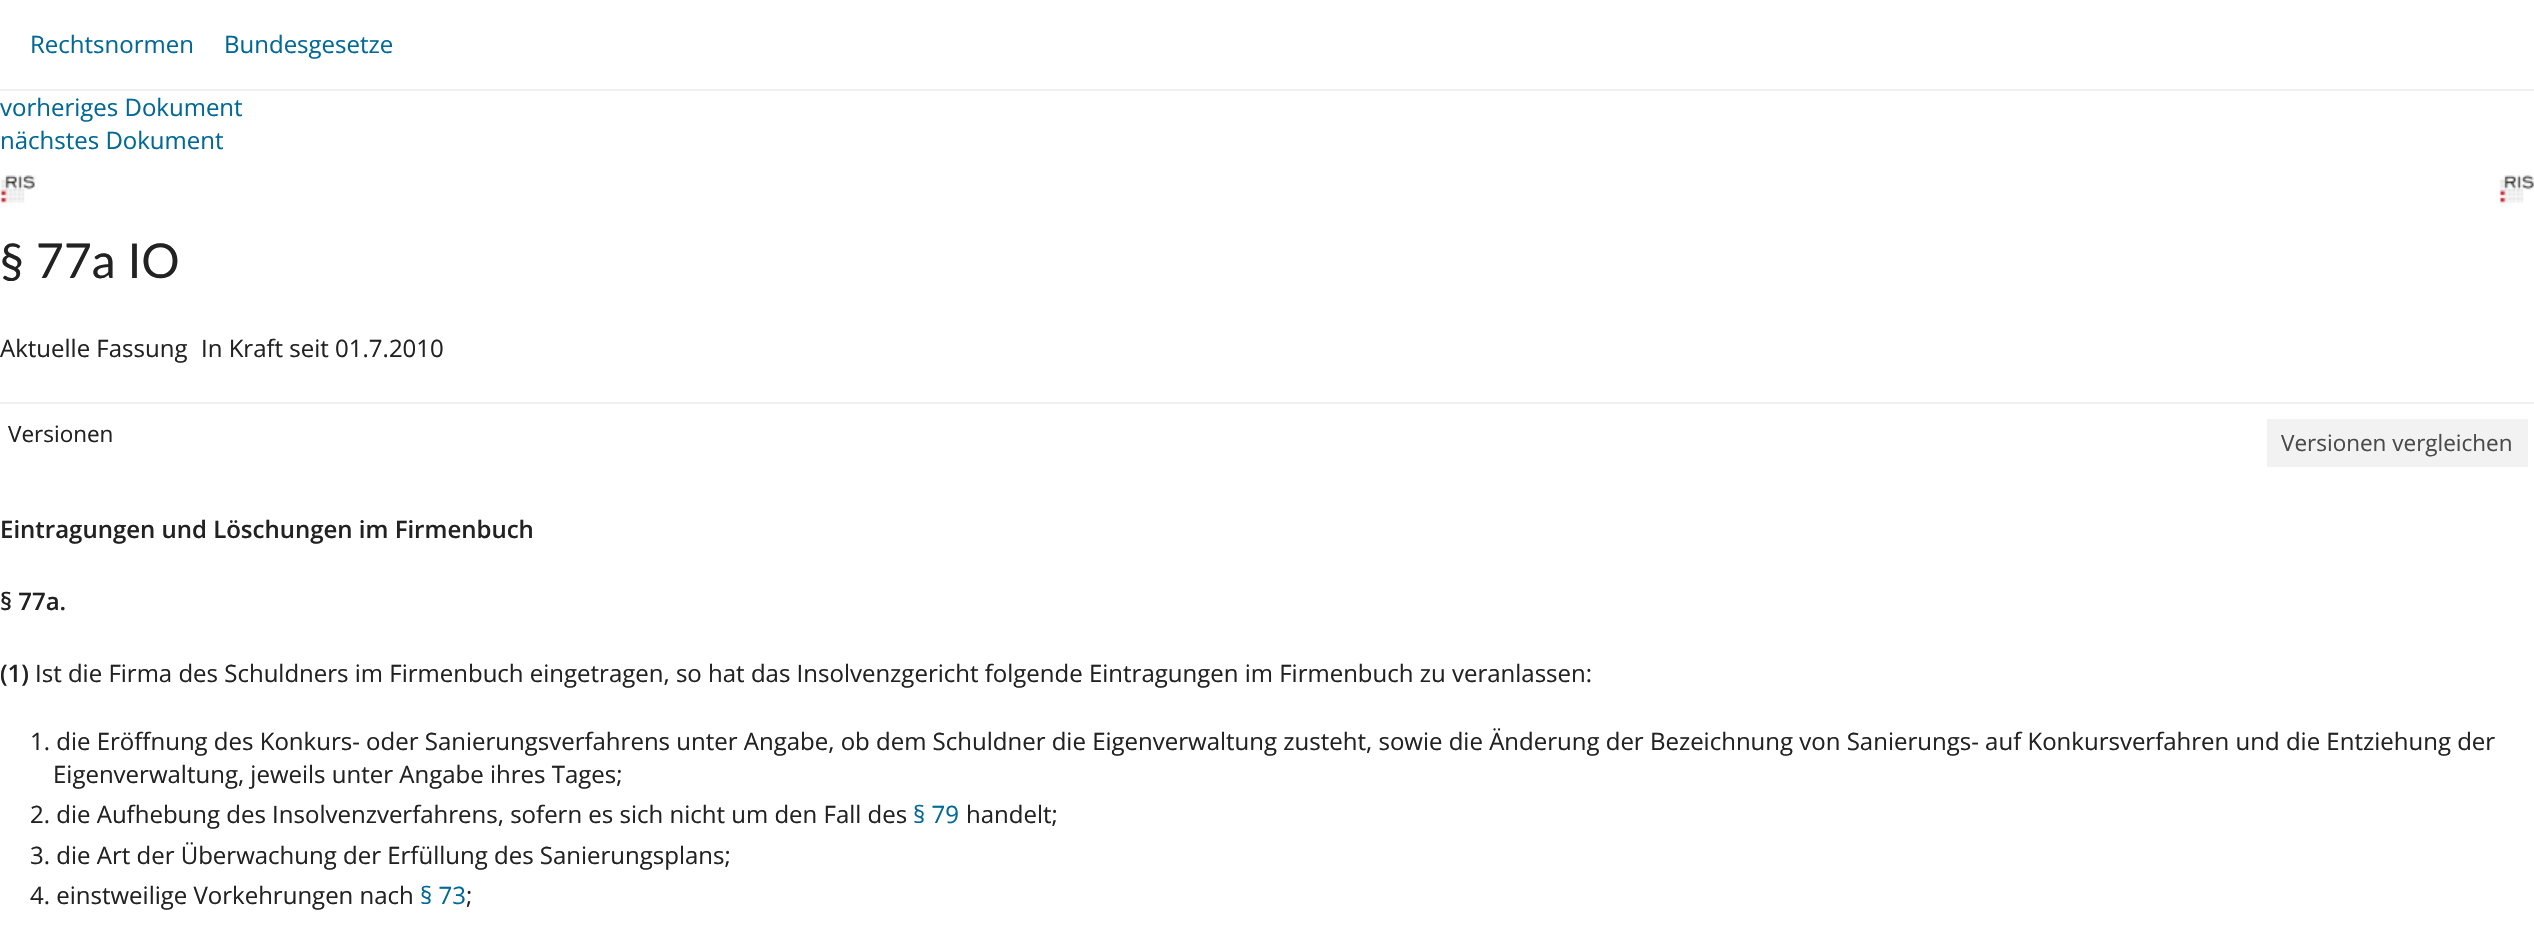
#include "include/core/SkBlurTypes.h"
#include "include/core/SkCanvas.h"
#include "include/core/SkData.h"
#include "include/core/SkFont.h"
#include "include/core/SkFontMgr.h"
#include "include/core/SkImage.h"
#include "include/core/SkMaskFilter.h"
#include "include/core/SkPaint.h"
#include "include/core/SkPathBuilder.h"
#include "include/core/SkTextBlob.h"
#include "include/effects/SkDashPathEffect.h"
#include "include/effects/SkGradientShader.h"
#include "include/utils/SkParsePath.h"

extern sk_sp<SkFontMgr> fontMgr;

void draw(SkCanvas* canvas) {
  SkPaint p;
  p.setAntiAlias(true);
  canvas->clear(SK_ColorWHITE);
  p.setColor(SkColorSetRGB(240, 240, 240));
  canvas->drawRect(SkRect::MakeLTRB(0, 89, 2534, 91), p);
  canvas->drawImageRect(SkImages::DeferredFromEncodedData(SkData::MakeFromFileName("images/1.png")), SkRect::MakeLTRB(2499, 175, 2534, 207), SkSamplingOptions());
  canvas->drawImageRect(SkImages::DeferredFromEncodedData(SkData::MakeFromFileName("images/2.png")), SkRect::MakeLTRB(0, 175, 36, 207), SkSamplingOptions());
  canvas->drawRect(SkRect::MakeLTRB(0, 402, 2534, 404), p);
  p.setColor(SkColorSetRGB(242, 242, 242));
  canvas->drawRect(SkRect::MakeLTRB(2267, 419, 2528, 467), p);
  SkFont font1(fontMgr->matchFamilyStyle("Open Sans", SkFontStyle::Normal()), 24);
  font1.setSubpixel(true);
  p.setColor(SkColorSetRGB(0, 105, 151));
  canvas->drawString("Rechtsnormen", 30, 53, font1, p);
  canvas->drawString("Bundesgesetze", 224, 53, font1, p);
  canvas->drawString("vorheriges Dokument", 0, 116, font1, p);
  canvas->drawString("nächstes Dokument", 0, 149, font1, p);
  SkFont font2(fontMgr->matchFamilyStyle("Lato", SkFontStyle::Normal()), 48);
  font2.setSubpixel(true);
  p.setColor(SkColorSetRGB(34, 34, 34));
  canvas->drawString("§ 77a IO", 0, 278, font2, p);
  canvas->drawString("Aktuelle Fassung", 0, 357, font1, p);
  canvas->drawString("In Kraft seit 01.7.2010", 201, 357, font1, p);
  SkFont font3(fontMgr->matchFamilyStyle("Open Sans", SkFontStyle::Normal()), 22.5f);
  font3.setSubpixel(true);
  canvas->drawString("Versionen", 8, 442, font3, p);
  p.setColor(SkColorSetRGB(74, 74, 74));
  canvas->drawString("Versionen vergleichen", 2281, 451, font3, p);
  SkFont font4(fontMgr->matchFamilyStyle("Open Sans", SkFontStyle(600, SkFontStyle::kNormal_Width, SkFontStyle::kUpright_Slant)), 24);
  font4.setSubpixel(true);
  p.setColor(SkColorSetRGB(34, 34, 34));
  canvas->drawString("Eintragungen und Löschungen im Firmenbuch", 0, 538, font4, p);
  canvas->drawString("§ 77a.", 0, 610, font4, p);
  canvas->drawString("(1)", 0, 682, font4, p);
  canvas->drawString("Ist die Firma des Schuldners im Firmenbuch eingetragen, so hat das Insolvenzgericht folgende Eintragungen im Firmenbuch zu veranlassen:", 35, 682, font1, p);
  canvas->drawString("1. die Eröffnung des Konkurs- oder Sanierungsverfahrens unter Angabe, ob dem Schuldner die Eigenverwaltung zusteht, sowie die Änderung der Bezeichnung von Sanierungs- auf Konkursverfahren und die Entziehung der", 30, 750, font1, p);
  canvas->drawString("Eigenverwaltung, jeweils unter Angabe ihres Tages;", 53, 783, font1, p);
  canvas->drawString("2. die Aufhebung des Insolvenzverfahrens, sofern es sich nicht um den Fall des", 30, 823, font1, p);
  p.setColor(SkColorSetRGB(0, 105, 151));
  canvas->drawString("§ 79", 913, 823, font1, p);
  p.setColor(SkColorSetRGB(34, 34, 34));
  canvas->drawString("handelt;", 966, 823, font1, p);
  canvas->drawString("3. die Art der Überwachung der Erfüllung des Sanierungsplans;", 30, 864, font1, p);
  canvas->drawString("4. einstweilige Vorkehrungen nach", 30, 904, font1, p);
  p.setColor(SkColorSetRGB(0, 105, 151));
  canvas->drawString("§ 73", 420, 904, font1, p);
  p.setColor(SkColorSetRGB(34, 34, 34));
  canvas->drawString(";", 466, 904, font1, p);
}
